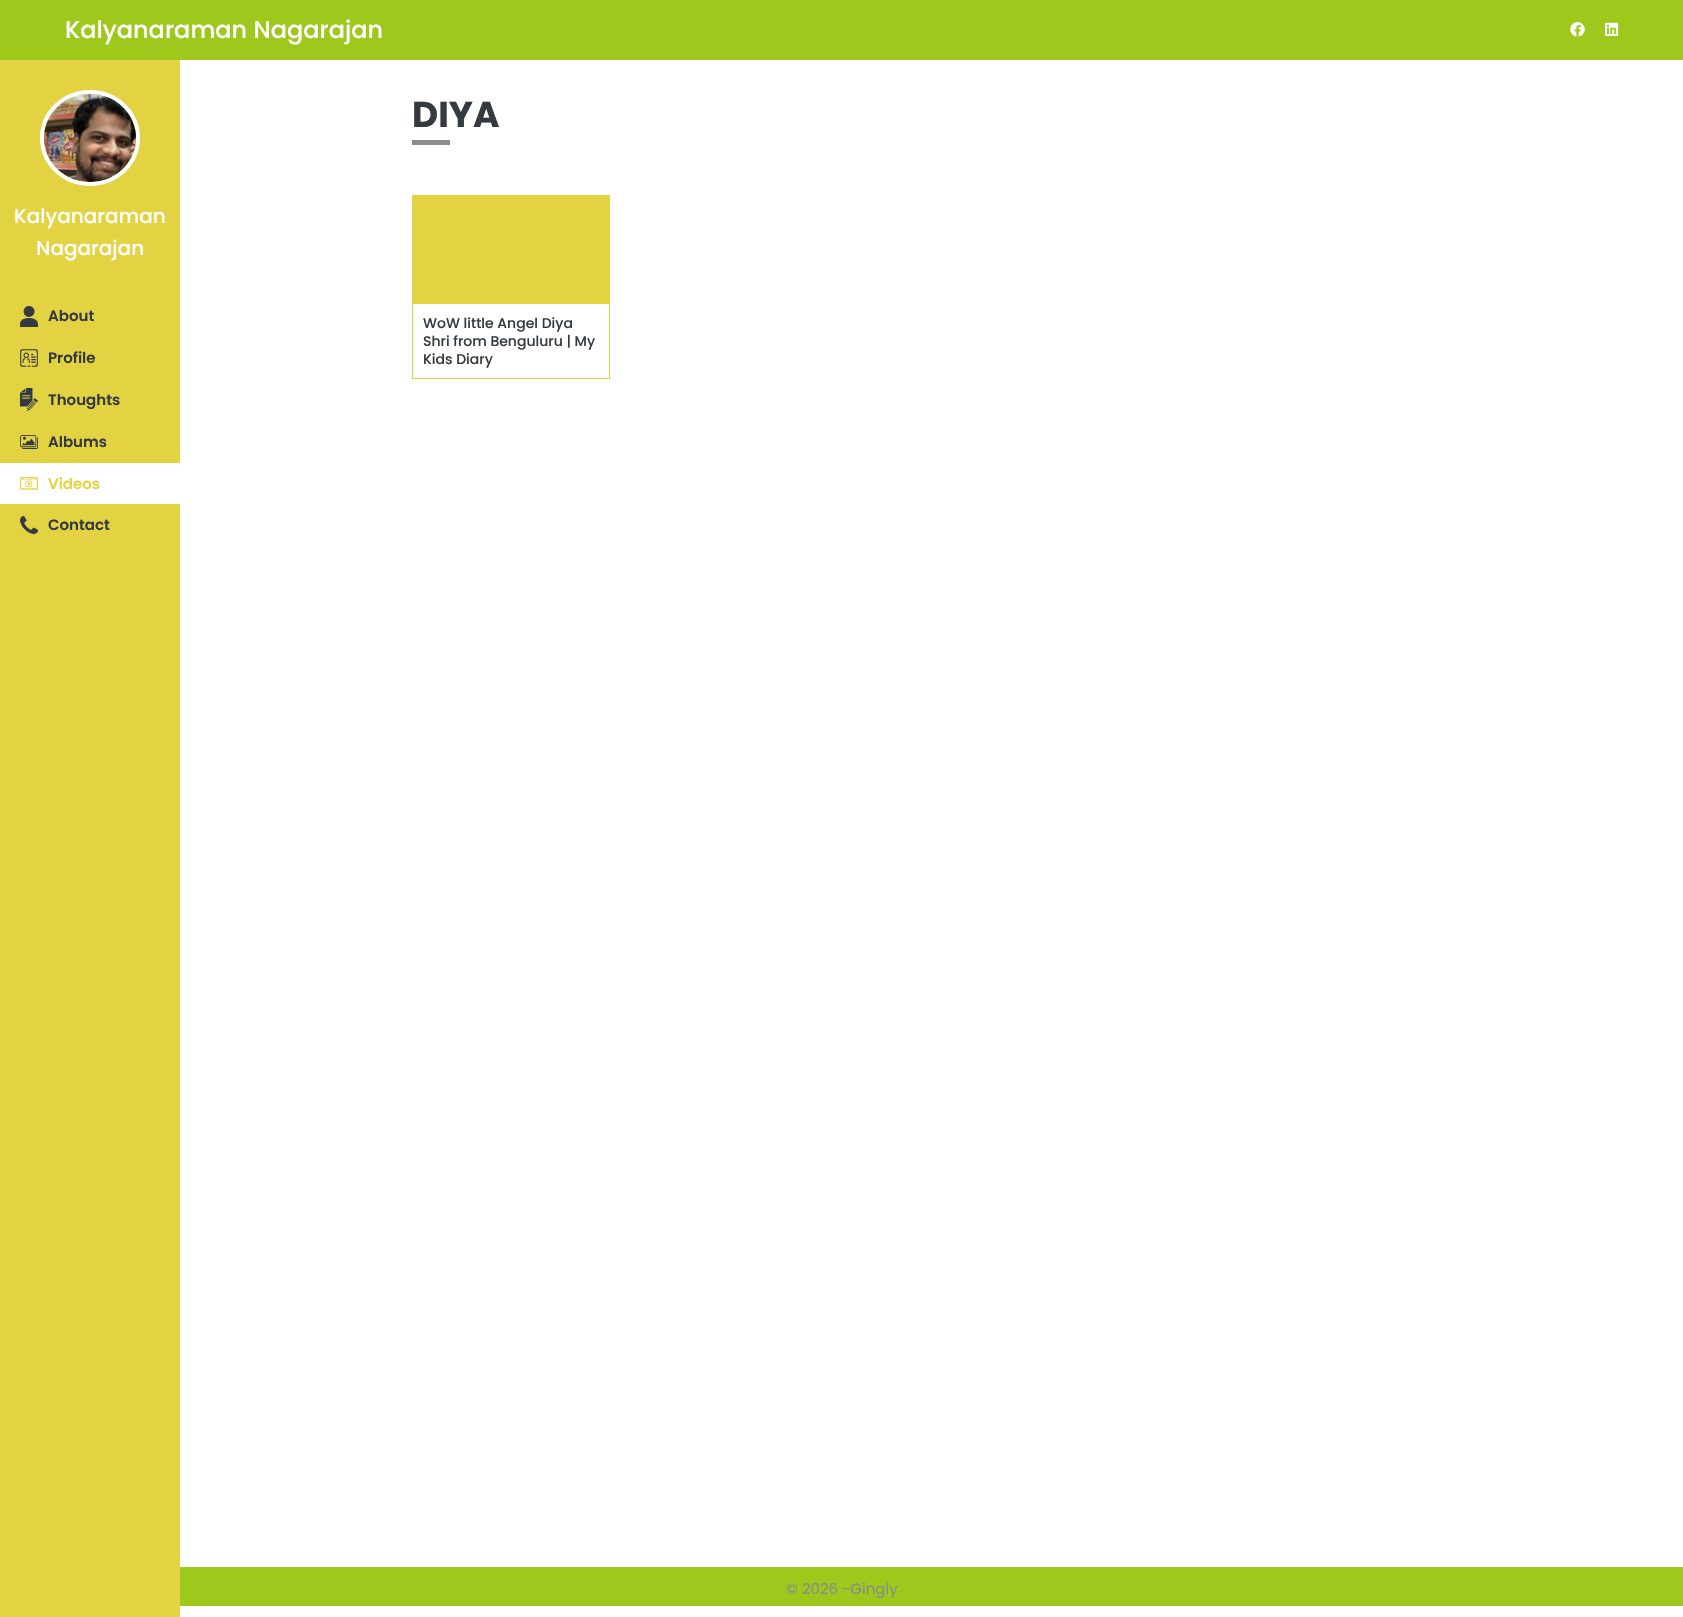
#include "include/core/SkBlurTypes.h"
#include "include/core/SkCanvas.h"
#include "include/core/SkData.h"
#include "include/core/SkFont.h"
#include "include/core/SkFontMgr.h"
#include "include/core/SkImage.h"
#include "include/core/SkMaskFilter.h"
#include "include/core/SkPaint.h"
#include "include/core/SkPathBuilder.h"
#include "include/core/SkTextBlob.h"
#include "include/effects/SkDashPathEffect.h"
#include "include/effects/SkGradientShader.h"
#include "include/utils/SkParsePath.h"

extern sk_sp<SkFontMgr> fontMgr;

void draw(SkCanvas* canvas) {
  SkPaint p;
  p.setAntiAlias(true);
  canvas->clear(SK_ColorWHITE);
  p.setColor(SkColorSetRGB(158, 200, 28));
  canvas->drawRect(SkRect::MakeLTRB(0, 0, 1683, 60), p);
  canvas->drawImageRect(SkImages::DeferredFromEncodedData(SkData::MakeFromFileName("images/1.png")), SkRect::MakeLTRB(1570, 22, 1585, 37), SkSamplingOptions());
  canvas->drawImageRect(SkImages::DeferredFromEncodedData(SkData::MakeFromFileName("images/2.png")), SkRect::MakeLTRB(1605, 22, 1619, 36), SkSamplingOptions());
  p.setColor(SkColorSetRGB(227, 211, 67));
  canvas->drawRect(SkRect::MakeLTRB(0, 60, 180, 1617), p);
  p.setStyle(SkPaint::kStroke_Style);
  p.setStrokeWidth(4);
  p.setColor(SK_ColorWHITE);
  canvas->drawPath(SkPathBuilder().moveTo(90, 92).cubicTo(116.5f, 92, 138, 112.5f, 138, 138).cubicTo(138, 163.5f, 116.5f, 184, 90, 184).cubicTo(63.5f, 184, 42, 163.5f, 42, 138).cubicTo(42, 112.5f, 63.5f, 92, 90, 92).close().detach(), p);
  canvas->drawImageRect(SkImages::DeferredFromEncodedData(SkData::MakeFromFileName("images/3.png")), SkRect::MakeLTRB(44, 94, 136, 182), SkSamplingOptions());
  canvas->drawImageRect(SkImages::DeferredFromEncodedData(SkData::MakeFromFileName("images/4.png")), SkRect::MakeLTRB(20, 306, 38, 327), SkSamplingOptions());
  canvas->drawImageRect(SkImages::DeferredFromEncodedData(SkData::MakeFromFileName("images/5.png")), SkRect::MakeLTRB(20, 349, 38, 367), SkSamplingOptions());
  canvas->drawImageRect(SkImages::DeferredFromEncodedData(SkData::MakeFromFileName("images/6.png")), SkRect::MakeLTRB(20, 388, 38, 411), SkSamplingOptions());
  canvas->drawImageRect(SkImages::DeferredFromEncodedData(SkData::MakeFromFileName("images/7.png")), SkRect::MakeLTRB(20, 435, 38, 449), SkSamplingOptions());
  p.setStyle(SkPaint::kFill_Style);
  canvas->drawRect(SkRect::MakeLTRB(0, 463, 180, 504), p);
  canvas->drawImageRect(SkImages::DeferredFromEncodedData(SkData::MakeFromFileName("images/8.png")), SkRect::MakeLTRB(20, 477, 38, 490), SkSamplingOptions());
  canvas->drawImageRect(SkImages::DeferredFromEncodedData(SkData::MakeFromFileName("images/9.png")), SkRect::MakeLTRB(20, 516, 38, 534), SkSamplingOptions());
  p.setColor(SkColorSetRGB(135, 141, 141));
  canvas->drawRect(SkRect::MakeLTRB(412, 140, 450, 145), p);
  p.setStyle(SkPaint::kStroke_Style);
  p.setStrokeWidth(1);
  p.setColor(SkColorSetRGB(227, 211, 67));
  canvas->drawRect(SkRect::MakeLTRB(412.5f, 195.5f, 609.5f, 378.5f), p);
  p.setStyle(SkPaint::kFill_Style);
  canvas->drawRect(SkRect::MakeLTRB(413, 196, 609, 304), p);
  p.setColor(SkColorSetRGB(158, 200, 28));
  canvas->drawRect(SkRect::MakeLTRB(180, 1567, 1683, 1606), p);
  SkFont font1(fontMgr->matchFamilyStyle("Poppins", SkFontStyle(500, SkFontStyle::kNormal_Width, SkFontStyle::kUpright_Slant)), 24);
  font1.setSubpixel(true);
  p.setColor(SK_ColorWHITE);
  canvas->drawString("Kalyanaraman Nagarajan", 65, 38, font1, p);
  SkFont font2(fontMgr->matchFamilyStyle("Poppins", SkFontStyle(500, SkFontStyle::kNormal_Width, SkFontStyle::kUpright_Slant)), 20);
  font2.setSubpixel(true);
  canvas->drawString("Kalyanaraman", 14, 223, font2, p);
  canvas->drawString("Nagarajan", 36, 255, font2, p);
  SkFont font3(fontMgr->matchFamilyStyle("Poppins", SkFontStyle(600, SkFontStyle::kNormal_Width, SkFontStyle::kUpright_Slant)), 15);
  font3.setSubpixel(true);
  p.setColor(SkColorSetRGB(52, 58, 64));
  canvas->drawString("About", 48, 321, font3, p);
  canvas->drawString("Profile", 48, 363, font3, p);
  canvas->drawString("Thoughts", 48, 405, font3, p);
  canvas->drawString("Albums", 48, 447, font3, p);
  p.setColor(SkColorSetRGB(227, 211, 67));
  canvas->drawString("Videos", 48, 489, font3, p);
  p.setColor(SkColorSetRGB(52, 58, 64));
  canvas->drawString("Contact", 48, 530, font3, p);
  SkFont font4(fontMgr->matchFamilyStyle("Poppins", SkFontStyle::Bold()), 36);
  font4.setSubpixel(true);
  canvas->drawString("DIYA", 412, 127, font4, p);
  SkFont font5(fontMgr->matchFamilyStyle("Poppins", SkFontStyle(500, SkFontStyle::kNormal_Width, SkFontStyle::kUpright_Slant)), 14);
  font5.setSubpixel(true);
  canvas->drawString("WoW little Angel Diya", 423, 328, font5, p);
  canvas->drawString("Shri from Benguluru | My", 423, 346, font5, p);
  canvas->drawString("Kids Diary", 423, 364, font5, p);
  SkFont font6(fontMgr->matchFamilyStyle("Poppins", SkFontStyle::Normal()), 15);
  font6.setSubpixel(true);
  p.setColor(SkColorSetRGB(135, 141, 141));
  canvas->drawString("© 2026 -Gingly", 786, 1594, font6, p);
}
